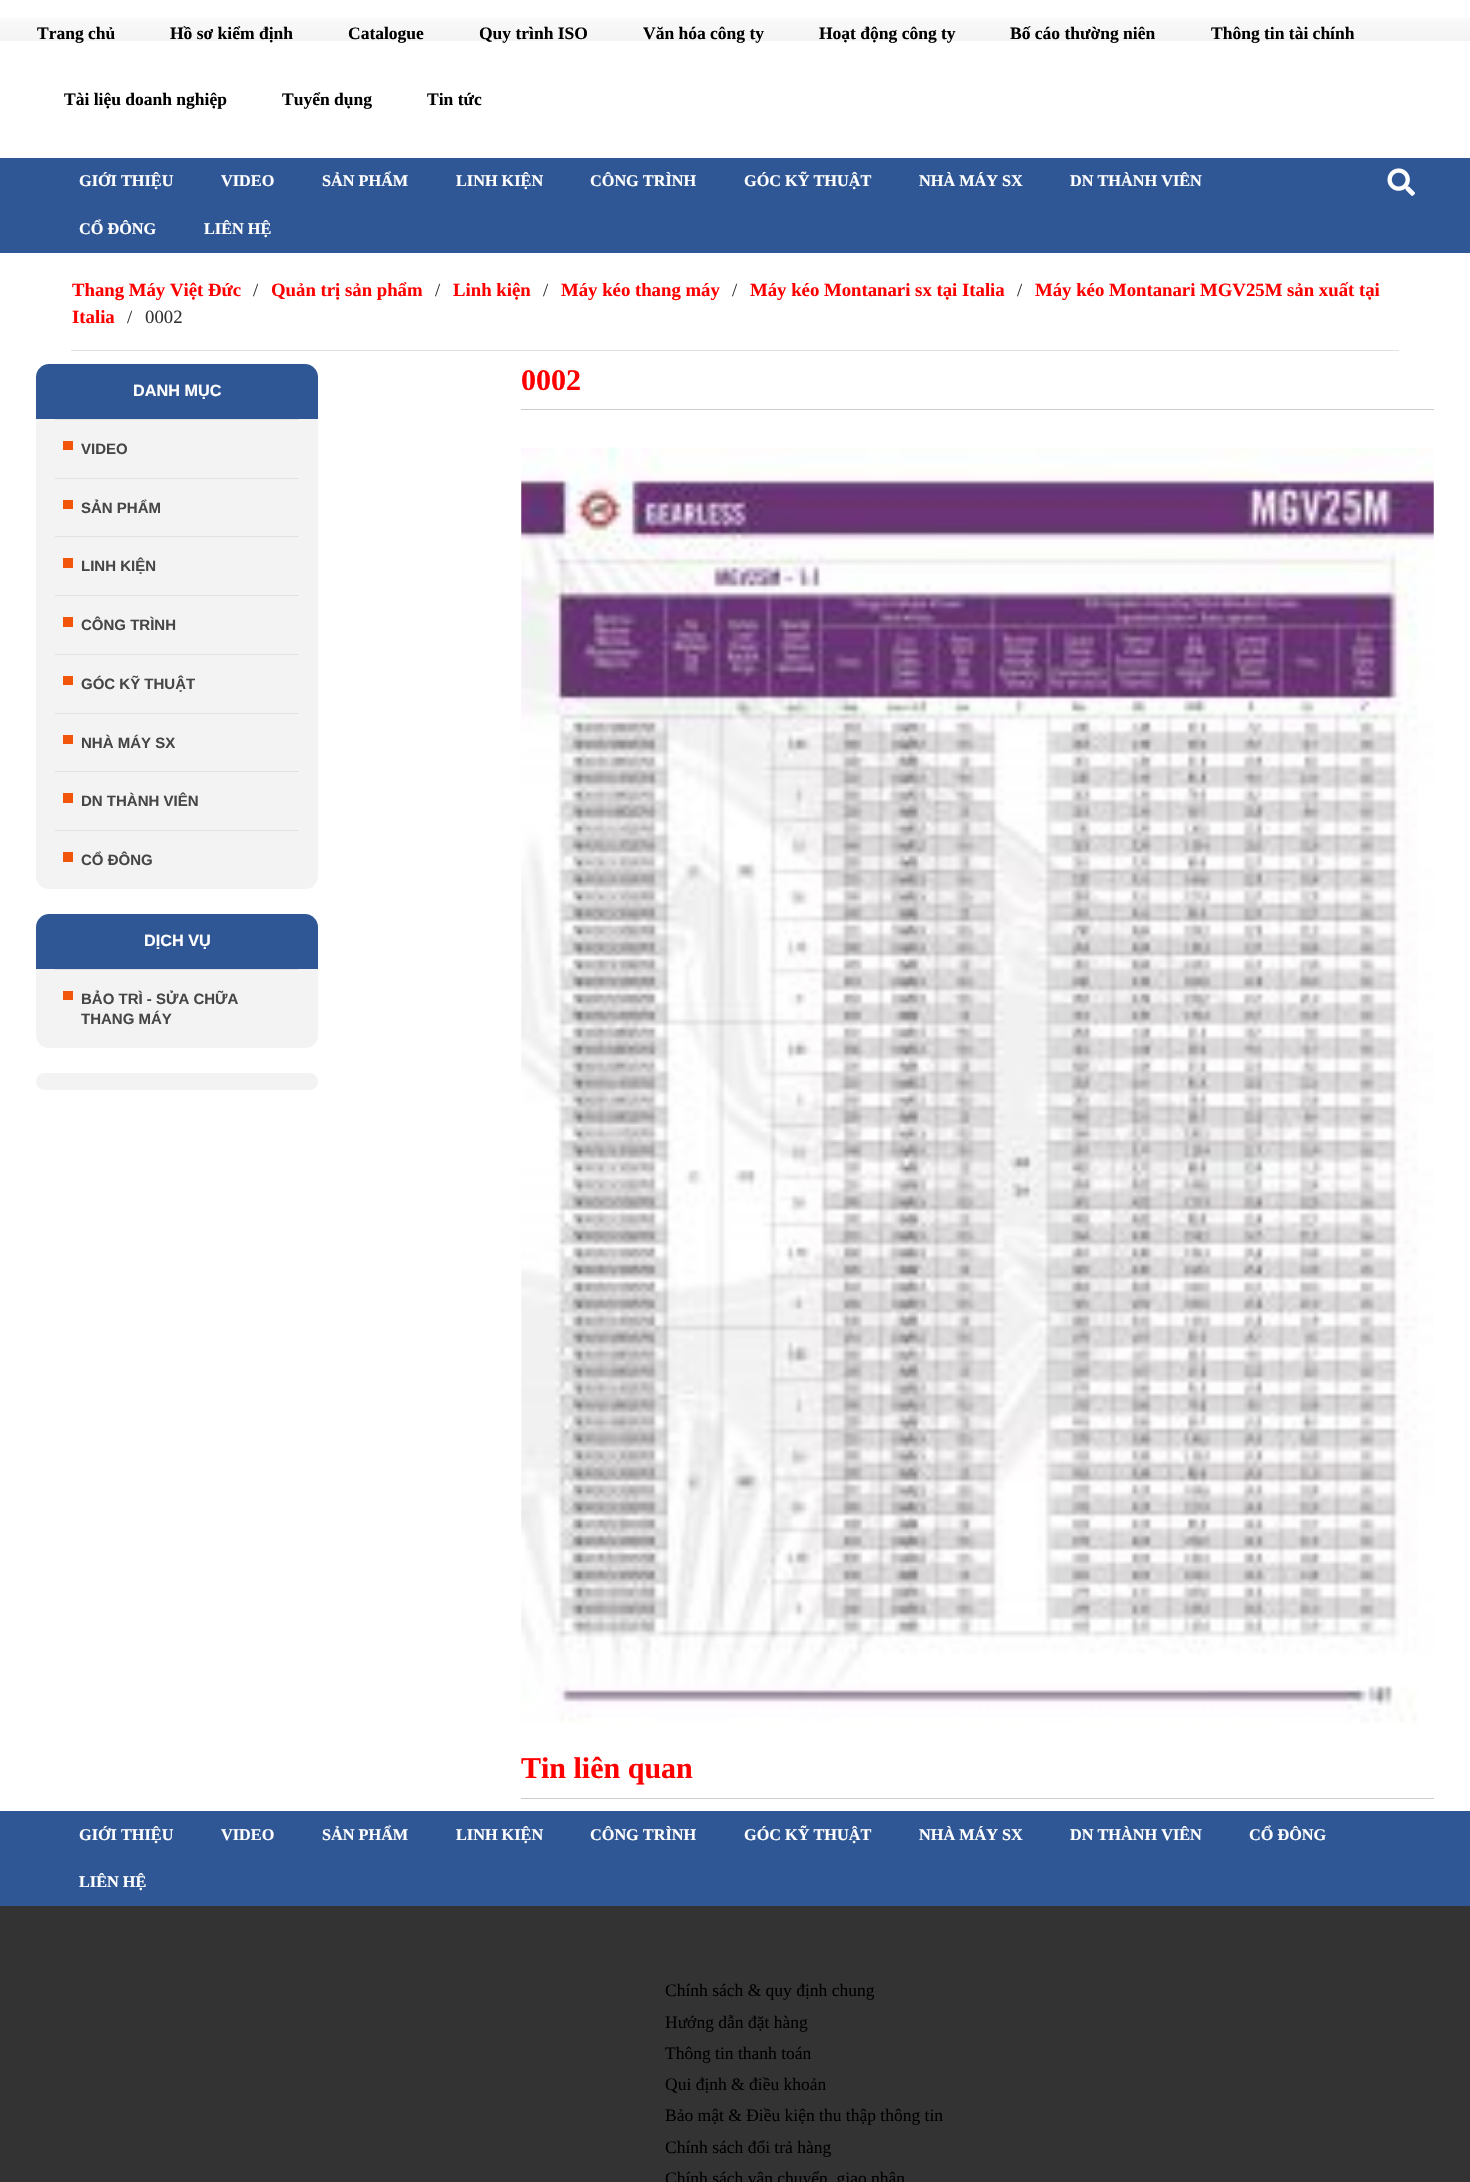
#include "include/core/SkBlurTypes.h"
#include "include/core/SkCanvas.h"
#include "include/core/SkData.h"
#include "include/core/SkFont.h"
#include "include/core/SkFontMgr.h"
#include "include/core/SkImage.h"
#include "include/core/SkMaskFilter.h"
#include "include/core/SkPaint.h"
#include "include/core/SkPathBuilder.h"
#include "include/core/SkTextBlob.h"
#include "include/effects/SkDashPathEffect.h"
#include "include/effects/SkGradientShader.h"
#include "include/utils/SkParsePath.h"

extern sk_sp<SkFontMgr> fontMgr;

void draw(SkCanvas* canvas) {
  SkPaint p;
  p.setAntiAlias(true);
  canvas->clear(SK_ColorWHITE);
  canvas->drawImageRect(SkImages::DeferredFromEncodedData(SkData::MakeFromFileName("images/1.png")), SkRect::MakeLTRB(0, 18, 1470, 41), SkSamplingOptions());
  p.setColor(SkColorSetRGB(47, 87, 149));
  canvas->drawRect(SkRect::MakeLTRB(0, 158, 1470, 253), p);
  canvas->drawImageRect(SkImages::DeferredFromEncodedData(SkData::MakeFromFileName("images/2.png")), SkRect::MakeLTRB(1387, 168, 1415, 196), SkSamplingOptions());
  p.setColor(SkColorSetRGB(226, 226, 226));
  canvas->drawRect(SkRect::MakeLTRB(71, 350, 1399, 351), p);
  p.setColor(SkColorSetRGB(243, 243, 243));
  canvas->drawRoundRect(SkRect::MakeLTRB(36, 364, 318, 889), 13, 13, p);
  p.setColor(SkColorSetRGB(47, 87, 149));
  canvas->drawPath(SkPathBuilder().moveTo(49, 364).lineTo(305, 364).cubicTo(312, 364, 318, 370, 318, 377).lineTo(318, 419).lineTo(36, 419).lineTo(36, 377).cubicTo(36, 370, 42, 364, 49, 364).close().detach(), p);
  p.setColor(SkColorSetRGB(241, 86, 10));
  canvas->drawRect(SkRect::MakeLTRB(63, 441, 73, 450), p);
  p.setColor(SkColorSetRGB(226, 226, 226));
  canvas->drawRect(SkRect::MakeLTRB(55, 419, 299, 420), p);
  p.setColor(SkColorSetRGB(241, 86, 10));
  canvas->drawRect(SkRect::MakeLTRB(63, 500, 73, 509), p);
  p.setColor(SkColorSetRGB(226, 226, 226));
  canvas->drawRect(SkRect::MakeLTRB(55, 478, 299, 479), p);
  p.setColor(SkColorSetRGB(241, 86, 10));
  canvas->drawRect(SkRect::MakeLTRB(63, 558, 73, 568), p);
  p.setColor(SkColorSetRGB(226, 226, 226));
  canvas->drawRect(SkRect::MakeLTRB(55, 536, 299, 537), p);
  p.setColor(SkColorSetRGB(241, 86, 10));
  canvas->drawRect(SkRect::MakeLTRB(63, 617, 73, 627), p);
  p.setColor(SkColorSetRGB(226, 226, 226));
  canvas->drawRect(SkRect::MakeLTRB(55, 595, 299, 596), p);
  p.setColor(SkColorSetRGB(241, 86, 10));
  canvas->drawRect(SkRect::MakeLTRB(63, 676, 73, 685), p);
  p.setColor(SkColorSetRGB(226, 226, 226));
  canvas->drawRect(SkRect::MakeLTRB(55, 654, 299, 655), p);
  p.setColor(SkColorSetRGB(241, 86, 10));
  canvas->drawRect(SkRect::MakeLTRB(63, 735, 73, 744), p);
  p.setColor(SkColorSetRGB(226, 226, 226));
  canvas->drawRect(SkRect::MakeLTRB(55, 713, 299, 714), p);
  p.setColor(SkColorSetRGB(241, 86, 10));
  canvas->drawRect(SkRect::MakeLTRB(63, 793, 73, 803), p);
  p.setColor(SkColorSetRGB(226, 226, 226));
  canvas->drawRect(SkRect::MakeLTRB(55, 771, 299, 772), p);
  p.setColor(SkColorSetRGB(241, 86, 10));
  canvas->drawRect(SkRect::MakeLTRB(63, 852, 73, 862), p);
  p.setColor(SkColorSetRGB(226, 226, 226));
  canvas->drawRect(SkRect::MakeLTRB(55, 830, 299, 831), p);
  p.setColor(SkColorSetRGB(243, 243, 243));
  canvas->drawRoundRect(SkRect::MakeLTRB(36, 914, 318, 1048), 13, 13, p);
  p.setColor(SkColorSetRGB(47, 87, 149));
  canvas->drawPath(SkPathBuilder().moveTo(49, 914).lineTo(305, 914).cubicTo(312, 914, 318, 920, 318, 927).lineTo(318, 969).lineTo(36, 969).lineTo(36, 927).cubicTo(36, 920, 42, 914, 49, 914).close().detach(), p);
  p.setColor(SkColorSetRGB(241, 86, 10));
  canvas->drawRect(SkRect::MakeLTRB(63, 991, 73, 1000), p);
  p.setColor(SkColorSetRGB(226, 226, 226));
  canvas->drawRect(SkRect::MakeLTRB(55, 969, 299, 970), p);
  p.setColor(SkColorSetRGB(243, 243, 243));
  canvas->drawRoundRect(SkRect::MakeLTRB(36, 1073, 318, 1090), 8.5f, 8.5f, p);
  p.setColor(SkColorSetRGB(204, 204, 204));
  canvas->drawRect(SkRect::MakeLTRB(521, 409, 1434, 410), p);
  canvas->drawImageRect(SkImages::DeferredFromEncodedData(SkData::MakeFromFileName("images/3.png")), SkRect::MakeLTRB(521, 447, 1434, 1724), SkSamplingOptions());
  canvas->drawRect(SkRect::MakeLTRB(521, 1798, 1434, 1799), p);
  p.setColor(SkColorSetRGB(47, 87, 149));
  canvas->drawRect(SkRect::MakeLTRB(0, 1811, 1470, 1906), p);
  p.setColor(SkColorSetRGB(51, 51, 51));
  canvas->drawRect(SkRect::MakeLTRB(0, 1906, 1470, 2182), p);
  SkFont font1(fontMgr->matchFamilyStyle("Liberation Serif", SkFontStyle::Bold()), 17.5f);
  font1.setSubpixel(true);
  p.setColor(SK_ColorBLACK);
  canvas->drawString("Trang chủ", 37, 39, font1, p);
  canvas->drawString("Hồ sơ kiểm định", 170, 39, font1, p);
  canvas->drawString("Catalogue", 348, 39, font1, p);
  canvas->drawString("Quy trình ISO", 479, 39, font1, p);
  canvas->drawString("Văn hóa công ty", 643, 39, font1, p);
  canvas->drawString("Hoạt động công ty", 819, 39, font1, p);
  canvas->drawString("Bố cáo thường niên", 1010, 39, font1, p);
  canvas->drawString("Thông tin tài chính", 1211, 39, font1, p);
  canvas->drawString("Tài liệu doanh nghiệp", 64, 105, font1, p);
  canvas->drawString("Tuyển dụng", 282, 105, font1, p);
  canvas->drawString("Tin tức", 427, 105, font1, p);
  SkFont font2(fontMgr->matchFamilyStyle("Liberation Serif", SkFontStyle::Bold()), 16.25f);
  font2.setSubpixel(true);
  p.setColor(SK_ColorWHITE);
  canvas->drawString("GIỚI THIỆU", 79, 186, font2, p);
  canvas->drawString("VIDEO", 221, 186, font2, p);
  canvas->drawString("SẢN PHẨM", 322, 186, font2, p);
  canvas->drawString("LINH KIỆN", 456, 186, font2, p);
  canvas->drawString("CÔNG TRÌNH", 590, 186, font2, p);
  canvas->drawString("GÓC KỸ THUẬT", 744, 186, font2, p);
  canvas->drawString("NHÀ MÁY SX", 919, 186, font2, p);
  canvas->drawString("DN THÀNH VIÊN", 1070, 186, font2, p);
  canvas->drawString("CỔ ĐÔNG", 79, 234, font2, p);
  canvas->drawString("LIÊN HỆ", 204, 234, font2, p);
  SkFont font3(fontMgr->matchFamilyStyle("Liberation Serif", SkFontStyle::Bold()), 18.75f);
  font3.setSubpixel(true);
  p.setColor(SkColorSetRGB(255, 0, 0));
  canvas->drawString("Thang Máy Việt Đức", 72, 296, font3, p);
  SkFont font4(fontMgr->matchFamilyStyle("Liberation Serif", SkFontStyle::Normal()), 18.75f);
  font4.setSubpixel(true);
  p.setColor(SkColorSetRGB(51, 51, 51));
  canvas->drawString("/", 253, 296, font4, p);
  p.setColor(SkColorSetRGB(255, 0, 0));
  canvas->drawString("Quản trị sản phẩm", 271, 296, font3, p);
  p.setColor(SkColorSetRGB(51, 51, 51));
  canvas->drawString("/", 435, 296, font4, p);
  p.setColor(SkColorSetRGB(255, 0, 0));
  canvas->drawString("Linh kiện", 453, 296, font3, p);
  p.setColor(SkColorSetRGB(51, 51, 51));
  canvas->drawString("/", 543, 296, font4, p);
  p.setColor(SkColorSetRGB(255, 0, 0));
  canvas->drawString("Máy kéo thang máy", 561, 296, font3, p);
  p.setColor(SkColorSetRGB(51, 51, 51));
  canvas->drawString("/", 732, 296, font4, p);
  p.setColor(SkColorSetRGB(255, 0, 0));
  canvas->drawString("Máy kéo Montanari sx tại Italia", 750, 296, font3, p);
  p.setColor(SkColorSetRGB(51, 51, 51));
  canvas->drawString("/", 1017, 296, font4, p);
  p.setColor(SkColorSetRGB(255, 0, 0));
  canvas->drawString("Máy kéo Montanari MGV25M sản xuất tại", 1035, 296, font3, p);
  canvas->drawString("Italia", 72, 323, font3, p);
  p.setColor(SkColorSetRGB(51, 51, 51));
  canvas->drawString("/", 127, 323, font4, p);
  canvas->drawString("0002", 145, 323, font4, p);
  SkFont font5(fontMgr->matchFamilyStyle("Liberation Sans", SkFontStyle::Bold()), 16.25f);
  font5.setSubpixel(true);
  p.setColor(SK_ColorWHITE);
  canvas->drawString("DANH MỤC", 133, 396, font5, p);
  SkFont font6(fontMgr->matchFamilyStyle("Liberation Sans", SkFontStyle::Bold()), 15);
  font6.setSubpixel(true);
  p.setColor(SkColorSetRGB(70, 70, 71));
  canvas->drawString("VIDEO", 81, 454, font6, p);
  canvas->drawString("SẢN PHẨM", 81, 513, font6, p);
  canvas->drawString("LINH KIỆN", 81, 571, font6, p);
  canvas->drawString("CÔNG TRÌNH", 81, 630, font6, p);
  canvas->drawString("GÓC KỸ THUẬT", 81, 689, font6, p);
  canvas->drawString("NHÀ MÁY SX", 81, 748, font6, p);
  canvas->drawString("DN THÀNH VIÊN", 81, 806, font6, p);
  canvas->drawString("CỔ ĐÔNG", 81, 865, font6, p);
  p.setColor(SK_ColorWHITE);
  canvas->drawString("DỊCH VỤ", 144, 946, font5, p);
  p.setColor(SkColorSetRGB(70, 70, 71));
  canvas->drawString("BẢO TRÌ - SỬA CHỮA", 81, 1004, font6, p);
  canvas->drawString("THANG MÁY", 81, 1024, font6, p);
  SkFont font7(fontMgr->matchFamilyStyle("Liberation Serif", SkFontStyle::Bold()), 30);
  font7.setSubpixel(true);
  p.setColor(SkColorSetRGB(255, 0, 0));
  canvas->drawString("0002", 521, 390, font7, p);
  canvas->drawString("Tin liên quan", 521, 1778, font7, p);
  p.setColor(SK_ColorWHITE);
  canvas->drawString("GIỚI THIỆU", 79, 1840, font2, p);
  canvas->drawString("VIDEO", 221, 1840, font2, p);
  canvas->drawString("SẢN PHẨM", 322, 1840, font2, p);
  canvas->drawString("LINH KIỆN", 456, 1840, font2, p);
  canvas->drawString("CÔNG TRÌNH", 590, 1840, font2, p);
  canvas->drawString("GÓC KỸ THUẬT", 744, 1840, font2, p);
  canvas->drawString("NHÀ MÁY SX", 919, 1840, font2, p);
  canvas->drawString("DN THÀNH VIÊN", 1070, 1840, font2, p);
  canvas->drawString("CỔ ĐÔNG", 1249, 1840, font2, p);
  canvas->drawString("LIÊN HỆ", 79, 1887, font2, p);
  SkFont font8(fontMgr->matchFamilyStyle("Liberation Serif", SkFontStyle::Normal()), 17.5f);
  font8.setSubpixel(true);
  p.setColor(SK_ColorBLACK);
  canvas->drawString("Chính sách & quy định chung", 665, 1996, font8, p);
  canvas->drawString("Hướng dẫn đặt hàng", 665, 2028, font8, p);
  canvas->drawString("Thông tin thanh toán", 665, 2059, font8, p);
  canvas->drawString("Qui định & điều khoản", 665, 2090, font8, p);
  canvas->drawString("Bảo mật & Điều kiện thu thập thông tin", 665, 2121, font8, p);
  canvas->drawString("Chính sách đổi trả hàng", 665, 2153, font8, p);
  canvas->drawString("Chính sách vận chuyển, giao nhận", 665, 2184, font8, p);
}
